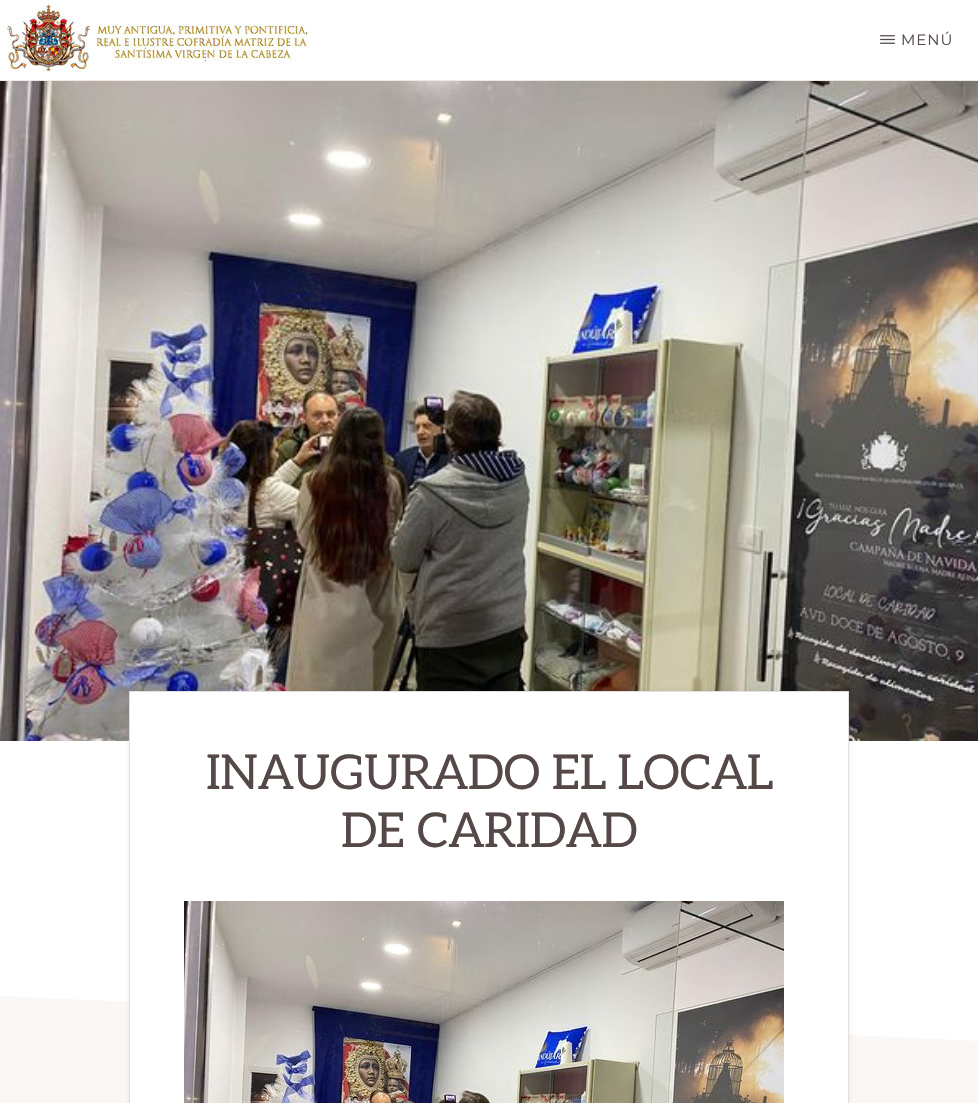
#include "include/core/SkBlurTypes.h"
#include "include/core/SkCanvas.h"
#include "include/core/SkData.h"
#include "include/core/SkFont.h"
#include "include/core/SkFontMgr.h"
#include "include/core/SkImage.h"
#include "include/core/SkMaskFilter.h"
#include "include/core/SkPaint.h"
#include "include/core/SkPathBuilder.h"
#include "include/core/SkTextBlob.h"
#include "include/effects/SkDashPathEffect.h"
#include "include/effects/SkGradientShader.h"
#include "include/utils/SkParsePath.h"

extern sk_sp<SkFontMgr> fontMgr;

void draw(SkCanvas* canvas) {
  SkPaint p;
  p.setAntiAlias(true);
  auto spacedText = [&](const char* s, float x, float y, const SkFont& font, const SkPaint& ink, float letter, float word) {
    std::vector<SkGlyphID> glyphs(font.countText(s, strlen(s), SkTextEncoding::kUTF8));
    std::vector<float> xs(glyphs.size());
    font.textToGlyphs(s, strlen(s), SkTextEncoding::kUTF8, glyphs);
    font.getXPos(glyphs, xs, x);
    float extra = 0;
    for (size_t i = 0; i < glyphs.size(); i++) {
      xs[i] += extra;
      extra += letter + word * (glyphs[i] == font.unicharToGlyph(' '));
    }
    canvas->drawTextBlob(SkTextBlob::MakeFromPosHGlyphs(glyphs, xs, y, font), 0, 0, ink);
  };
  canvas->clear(SK_ColorWHITE);
  p.setColor(SkColorSetRGB(238, 233, 227));
  canvas->drawRect(SkRect::MakeLTRB(0, 80, 978, 81), p);
  canvas->drawImageRect(SkImages::DeferredFromEncodedData(SkData::MakeFromFileName("images/1.png")), SkRect::MakeLTRB(0, 0, 312, 72), SkSamplingOptions());
  canvas->drawImageRect(SkImages::DeferredFromEncodedData(SkData::MakeFromFileName("images/2.png")), SkRect::MakeLTRB(880, 35, 895, 44), SkSamplingOptions());
  canvas->drawImageRect(SkImages::DeferredFromEncodedData(SkData::MakeFromFileName("images/3.png")), SkRect::MakeLTRB(0, 81, 978, 741), SkSamplingOptions());
  p.setColor(SkColorSetRGB(250, 247, 244));
  canvas->drawRect(SkRect::MakeLTRB(0, 996, 978, 1103), p);
  p.setColor(SK_ColorWHITE);
  canvas->drawPath(SkPathBuilder().moveTo(0, 741).lineTo(0, 996).lineTo(978, 1041).lineTo(978, 741).close().detach(), p);
  p.setColor(SkColorSetARGB(18, 0, 0, 0));
  p.setMaskFilter(SkMaskFilter::MakeBlur(kNormal_SkBlurStyle, 2.5f));
  canvas->drawRect(SkRect::MakeLTRB(129, 691, 849, 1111), p);
  p.setMaskFilter(nullptr);
  p.setColor(SK_ColorWHITE);
  canvas->drawRect(SkRect::MakeLTRB(129.5f, 691.5f, 848.5f, 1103.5f), p);
  p.setStyle(SkPaint::kStroke_Style);
  p.setStrokeWidth(1);
  p.setColor(SkColorSetRGB(224, 224, 224));
  canvas->drawRect(SkRect::MakeLTRB(129.5f, 691.5f, 848.5f, 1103.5f), p);
  canvas->drawImageRect(SkImages::DeferredFromEncodedData(SkData::MakeFromFileName("images/4.png")), SkRect::MakeLTRB(184, 901, 784, 1103), SkSamplingOptions());
  SkFont font1(fontMgr->matchFamilyStyle("Montserrat", SkFontStyle::Normal()), 15);
  font1.setSubpixel(true);
  p.setStyle(SkPaint::kFill_Style);
  p.setColor(SkColorSetRGB(85, 73, 72));
  spacedText("MENÚ", 901, 45, font1, p, 1, 0);
  SkFont font2(fontMgr->matchFamilyStyle("Aleo", SkFontStyle::Normal()), 48);
  font2.setSubpixel(true);
  spacedText("INAUGURADO EL LOCAL", 206, 789, font2, p, -0.5f, 0);
  spacedText("DE CARIDAD", 341, 847, font2, p, -0.5f, 0);
}
